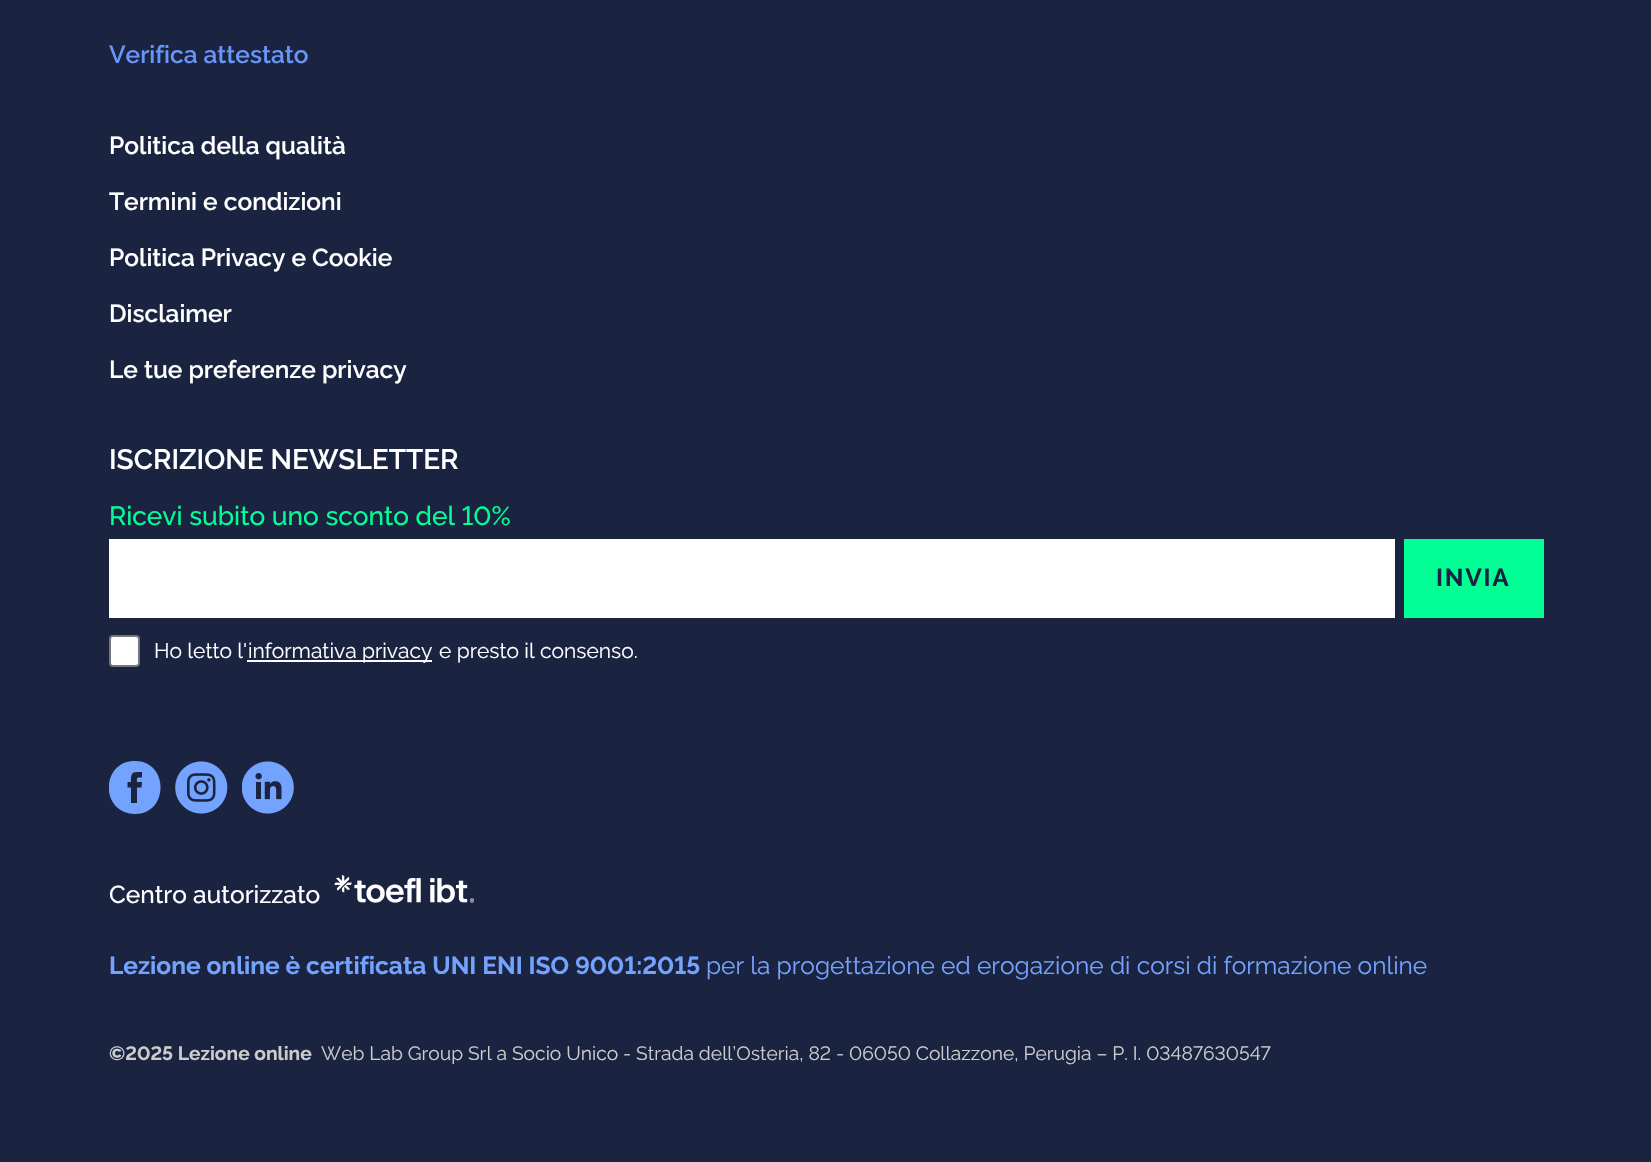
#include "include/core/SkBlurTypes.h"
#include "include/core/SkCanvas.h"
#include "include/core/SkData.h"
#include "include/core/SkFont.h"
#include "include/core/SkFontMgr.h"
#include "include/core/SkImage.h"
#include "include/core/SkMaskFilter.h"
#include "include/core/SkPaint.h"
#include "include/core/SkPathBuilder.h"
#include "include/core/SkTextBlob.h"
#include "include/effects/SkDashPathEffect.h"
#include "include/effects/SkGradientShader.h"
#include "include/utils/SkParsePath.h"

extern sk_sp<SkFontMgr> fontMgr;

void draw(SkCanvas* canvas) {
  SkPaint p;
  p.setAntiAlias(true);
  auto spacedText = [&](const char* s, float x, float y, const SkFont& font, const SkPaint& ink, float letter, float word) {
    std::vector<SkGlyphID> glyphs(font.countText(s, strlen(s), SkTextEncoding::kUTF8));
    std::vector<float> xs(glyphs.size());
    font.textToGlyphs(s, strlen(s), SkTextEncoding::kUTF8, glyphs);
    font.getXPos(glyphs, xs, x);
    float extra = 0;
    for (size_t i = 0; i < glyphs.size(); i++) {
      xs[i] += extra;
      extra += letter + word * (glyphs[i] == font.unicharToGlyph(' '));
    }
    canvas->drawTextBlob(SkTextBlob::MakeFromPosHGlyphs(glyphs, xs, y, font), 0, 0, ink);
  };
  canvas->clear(SkColorSetRGB(26, 36, 65));
  p.setColor(SK_ColorWHITE);
  canvas->drawRect(SkRect::MakeLTRB(109, 539, 1395, 618), p);
  p.setColor(SkColorSetRGB(0, 255, 149));
  canvas->drawRect(SkRect::MakeLTRB(1404, 539, 1544, 618), p);
  p.setColor(SK_ColorWHITE);
  canvas->drawRoundRect(SkRect::MakeLTRB(110, 636, 139, 666), 3, 3, p);
  p.setStyle(SkPaint::kStroke_Style);
  p.setStrokeWidth(2);
  p.setColor(SkColorSetRGB(118, 118, 118));
  canvas->drawRoundRect(SkRect::MakeLTRB(110, 636, 139, 666), 3, 3, p);
  p.setStyle(SkPaint::kFill_Style);
  p.setColor(SK_ColorWHITE);
  canvas->drawRect(SkRect::MakeLTRB(247, 660, 432, 662), p);
  canvas->save();
  canvas->clipRect(SkRect::MakeLTRB(109, 761, 161, 814));
  p.setColor(SkColorSetRGB(116, 162, 255));
  canvas->drawPath(SkPathBuilder().moveTo(135, 814).cubicTo(100, 814, 100, 761, 135, 761).cubicTo(169, 761, 169, 814, 135, 814).detach(), p);
  canvas->restore();
  p.setColor(SkColorSetRGB(26, 36, 65));
  canvas->drawPath(SkPathBuilder().moveTo(131, 803).lineTo(137, 803).lineTo(137, 787.5f).lineTo(141.5f, 787.5f).lineTo(142, 782).lineTo(137, 782).cubicTo(137, 776.5f, 136.5f, 777.5f, 142, 777.5f).lineTo(142, 772).cubicTo(132, 772, 131, 772, 131, 782).lineTo(127.5f, 782).lineTo(127.5f, 787.5f).lineTo(131, 787.5f).close().detach(), p);
  canvas->drawImageRect(SkImages::DeferredFromEncodedData(SkData::MakeFromFileName("images/1.png")), SkRect::MakeLTRB(175, 761, 228, 814), SkSamplingOptions());
  canvas->drawImageRect(SkImages::DeferredFromEncodedData(SkData::MakeFromFileName("images/2.png")), SkRect::MakeLTRB(242, 761, 294, 814), SkSamplingOptions());
  canvas->drawImageRect(SkImages::DeferredFromEncodedData(SkData::MakeFromFileName("images/3.png")), SkRect::MakeLTRB(334, 875, 474, 903), SkSamplingOptions());
  SkFont font1(fontMgr->matchFamilyStyle("Raleway", SkFontStyle(600, SkFontStyle::kNormal_Width, SkFontStyle::kUpright_Slant)), 24.5f);
  font1.setSubpixel(true);
  p.setColor(SkColorSetRGB(104, 149, 247));
  canvas->drawString("Verifica attestato", 109, 63, font1, p);
  p.setColor(SK_ColorWHITE);
  canvas->drawString("Politica della qualità", 109, 154, font1, p);
  canvas->drawString("Termini e condizioni", 109, 210, font1, p);
  canvas->drawString("Politica Privacy e Cookie", 109, 266, font1, p);
  canvas->drawString("Disclaimer", 109, 322, font1, p);
  canvas->drawString("Le tue preferenze privacy", 109, 378, font1, p);
  SkFont font2(fontMgr->matchFamilyStyle("Raleway", SkFontStyle(600, SkFontStyle::kNormal_Width, SkFontStyle::kUpright_Slant)), 28);
  font2.setSubpixel(true);
  canvas->drawString("ISCRIZIONE NEWSLETTER", 109, 469, font2, p);
  SkFont font3(fontMgr->matchFamilyStyle("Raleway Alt", SkFontStyle(500, SkFontStyle::kNormal_Width, SkFontStyle::kUpright_Slant)), 26.25f);
  font3.setSubpixel(true);
  p.setColor(SkColorSetRGB(0, 255, 149));
  canvas->drawString("Ricevi subito uno sconto del 10%", 109, 525, font3, p);
  SkFont font4(fontMgr->matchFamilyStyle("Raleway", SkFontStyle::Bold()), 24.5f);
  font4.setSubpixel(true);
  p.setColor(SkColorSetRGB(26, 36, 65));
  spacedText("INVIA", 1436, 586, font4, p, 1.75f, 0);
  SkFont font5(fontMgr->matchFamilyStyle("Raleway", SkFontStyle::Normal()), 21);
  font5.setSubpixel(true);
  p.setColor(SK_ColorWHITE);
  canvas->drawString("Ho letto l'", 154, 658, font5, p);
  canvas->drawString("informativa privacy", 248, 658, font5, p);
  canvas->drawString("e presto il consenso.", 439, 658, font5, p);
  SkFont font6(fontMgr->matchFamilyStyle("Raleway", SkFontStyle(500, SkFontStyle::kNormal_Width, SkFontStyle::kUpright_Slant)), 24.5f);
  font6.setSubpixel(true);
  canvas->drawString("Centro autorizzato", 109, 903, font6, p);
  SkFont font7(fontMgr->matchFamilyStyle("Raleway Alt", SkFontStyle::Bold()), 24.5f);
  font7.setSubpixel(true);
  p.setColor(SkColorSetRGB(116, 162, 255));
  canvas->drawString("Lezione online è certificata UNI ENI ISO 9001:2015", 109, 974, font7, p);
  SkFont font8(fontMgr->matchFamilyStyle("Raleway", SkFontStyle::Normal()), 24.5f);
  font8.setSubpixel(true);
  canvas->drawString("per la progettazione ed erogazione di corsi di formazione online", 706, 974, font8, p);
  SkFont font9(fontMgr->matchFamilyStyle("Raleway Alt", SkFontStyle::Bold()), 19.25f);
  font9.setSubpixel(true);
  p.setColor(SkColorSetRGB(204, 204, 204));
  canvas->drawString("©2025 Lezione online", 109, 1060, font9, p);
  SkFont font10(fontMgr->matchFamilyStyle("Raleway Alt", SkFontStyle::Normal()), 19.25f);
  font10.setSubpixel(true);
  canvas->drawString("Web Lab Group Srl a Socio Unico - Strada dell’Osteria, 82 - 06050 Collazzone, Perugia – P. I. 03487630547", 321, 1060, font10, p);
}
